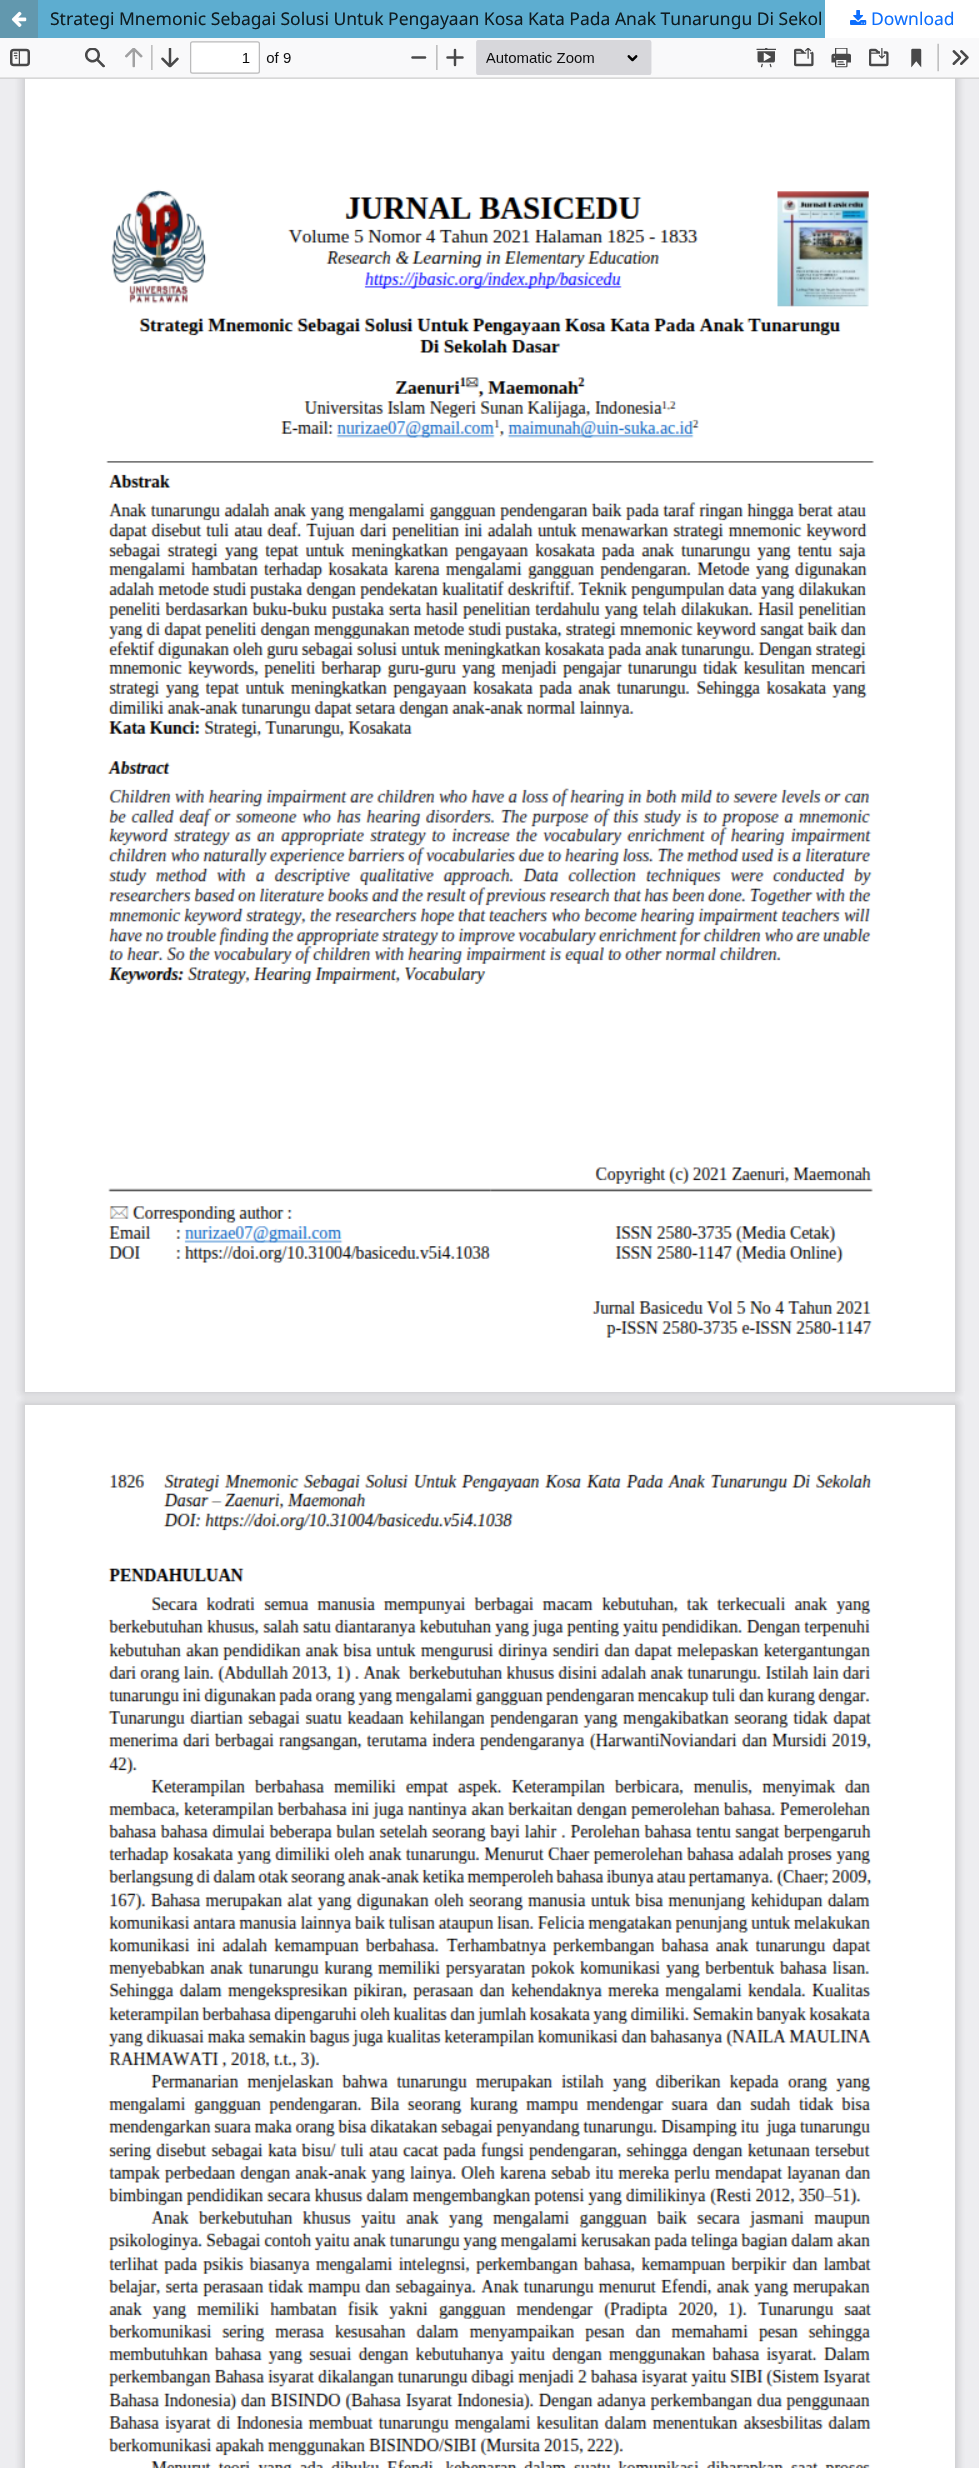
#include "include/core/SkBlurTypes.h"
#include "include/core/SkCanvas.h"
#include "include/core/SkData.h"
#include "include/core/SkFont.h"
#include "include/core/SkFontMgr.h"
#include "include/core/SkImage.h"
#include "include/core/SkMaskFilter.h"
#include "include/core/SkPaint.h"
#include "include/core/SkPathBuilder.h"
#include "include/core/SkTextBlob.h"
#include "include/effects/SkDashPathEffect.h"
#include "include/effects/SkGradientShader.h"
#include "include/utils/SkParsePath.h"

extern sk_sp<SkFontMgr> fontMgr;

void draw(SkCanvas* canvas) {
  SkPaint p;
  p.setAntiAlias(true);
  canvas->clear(SK_ColorWHITE);
  p.setColor(SkColorSetRGB(93, 173, 208));
  canvas->drawRect(SkRect::MakeLTRB(38, 0, 825, 38), p);
  p.setColor(SkColorSetRGB(98, 152, 174));
  canvas->drawRect(SkRect::MakeLTRB(0, 0, 38, 38), p);
  canvas->drawImageRect(SkImages::DeferredFromEncodedData(SkData::MakeFromFileName("images/1.png")), SkRect::MakeLTRB(11, 11, 27, 27), SkSamplingOptions());
  canvas->drawImageRect(SkImages::DeferredFromEncodedData(SkData::MakeFromFileName("images/2.png")), SkRect::MakeLTRB(850, 10, 867, 25), SkSamplingOptions());
  canvas->drawImageRect(SkImages::DeferredFromEncodedData(SkData::MakeFromFileName("images/3.png")), SkRect::MakeLTRB(0, 38, 979, 2468), SkSamplingOptions());
  SkFont font1(fontMgr->matchFamilyStyle("Noto Sans", SkFontStyle::Normal()), 17.5f);
  font1.setSubpixel(true);
  p.setColor(SkColorSetRGB(15, 28, 33));
  canvas->drawString("Strategi Mnemonic Sebagai Solusi Untuk Pengayaan Kosa Kata Pada Anak Tunarungu Di Sekol", 50, 25, font1, p);
  p.setColor(SkColorSetRGB(13, 110, 253));
  canvas->drawString("Download", 871, 25, font1, p);
}
